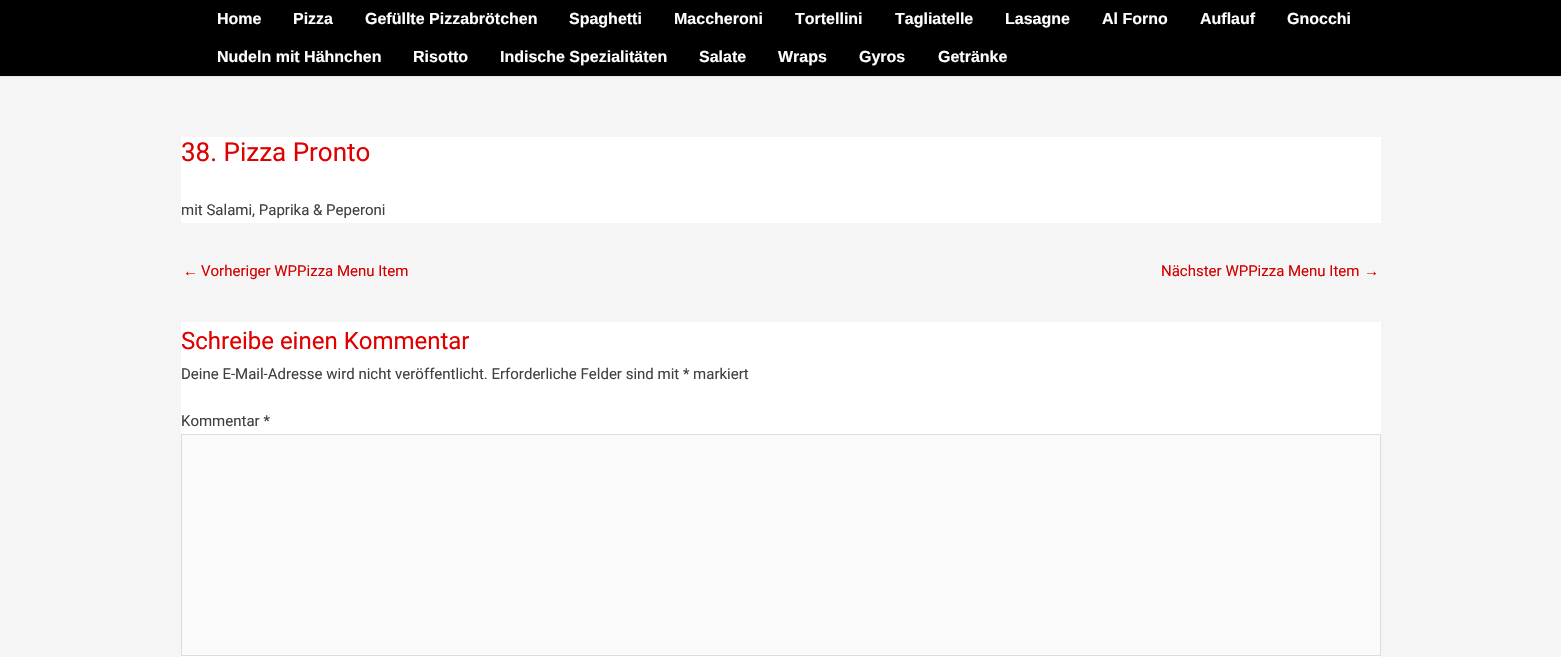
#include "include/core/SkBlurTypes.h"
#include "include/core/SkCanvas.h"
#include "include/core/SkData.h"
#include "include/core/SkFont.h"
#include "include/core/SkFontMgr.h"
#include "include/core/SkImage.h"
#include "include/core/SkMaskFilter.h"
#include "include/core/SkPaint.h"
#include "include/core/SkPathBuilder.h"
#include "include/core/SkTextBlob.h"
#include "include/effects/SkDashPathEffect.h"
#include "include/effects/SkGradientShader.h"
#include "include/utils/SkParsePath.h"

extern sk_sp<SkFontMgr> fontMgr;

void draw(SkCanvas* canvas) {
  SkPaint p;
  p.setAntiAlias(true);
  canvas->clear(SkColorSetRGB(245, 245, 245));
  p.setColor(SK_ColorBLACK);
  canvas->drawRect(SkRect::MakeLTRB(0, 0, 1561, 76), p);
  p.setColor(SkColorSetRGB(229, 229, 229));
  canvas->drawRect(SkRect::MakeLTRB(0, 76, 1561, 77), p);
  p.setColor(SK_ColorWHITE);
  canvas->drawRect(SkRect::MakeLTRB(181, 137, 1381, 223), p);
  canvas->drawRect(SkRect::MakeLTRB(181, 322, 1381, 657), p);
  p.setColor(SkColorSetRGB(250, 250, 250));
  canvas->drawRect(SkRect::MakeLTRB(181.5f, 434.5f, 1380.5f, 655.5f), p);
  p.setStyle(SkPaint::kStroke_Style);
  p.setStrokeWidth(1);
  p.setColor(SkColorSetRGB(221, 221, 221));
  canvas->drawRect(SkRect::MakeLTRB(181.5f, 434.5f, 1380.5f, 655.5f), p);
  SkFont font1(fontMgr->matchFamilyStyle("Liberation Sans", SkFontStyle::Bold()), 16);
  font1.setSubpixel(true);
  p.setStyle(SkPaint::kFill_Style);
  p.setColor(SK_ColorWHITE);
  canvas->drawString("Home", 217, 24, font1, p);
  canvas->drawString("Pizza", 293, 24, font1, p);
  canvas->drawString("Gefüllte Pizzabrötchen", 365, 24, font1, p);
  canvas->drawString("Spaghetti", 569, 24, font1, p);
  canvas->drawString("Maccheroni", 674, 24, font1, p);
  canvas->drawString("Tortellini", 795, 24, font1, p);
  canvas->drawString("Tagliatelle", 895, 24, font1, p);
  canvas->drawString("Lasagne", 1005, 24, font1, p);
  canvas->drawString("Al Forno", 1102, 24, font1, p);
  canvas->drawString("Auflauf", 1200, 24, font1, p);
  canvas->drawString("Gnocchi", 1287, 24, font1, p);
  canvas->drawString("Nudeln mit Hähnchen", 217, 62, font1, p);
  canvas->drawString("Risotto", 413, 62, font1, p);
  canvas->drawString("Indische Spezialitäten", 500, 62, font1, p);
  canvas->drawString("Salate", 699, 62, font1, p);
  canvas->drawString("Wraps", 778, 62, font1, p);
  canvas->drawString("Gyros", 859, 62, font1, p);
  canvas->drawString("Getränke", 938, 62, font1, p);
  SkFont font2(fontMgr->matchFamilyStyle("Roboto", SkFontStyle::Normal()), 26);
  font2.setSubpixel(true);
  p.setColor(SkColorSetRGB(224, 0, 0));
  canvas->drawString("38. Pizza Pronto", 181, 161, font2, p);
  SkFont font3(fontMgr->matchFamilyStyle("Roboto", SkFontStyle::Normal()), 15);
  font3.setSubpixel(true);
  p.setColor(SkColorSetRGB(64, 64, 64));
  canvas->drawString("mit Salami, Paprika & Peperoni", 181, 215, font3, p);
  SkFont font4(fontMgr->matchFamilyStyle("Liberation Sans", SkFontStyle::Normal()), 15);
  font4.setSubpixel(true);
  p.setColor(SkColorSetRGB(211, 0, 0));
  canvas->drawString("←", 183, 276, font4, p);
  canvas->drawString("Vorheriger WPPizza Menu Item", 201, 276, font3, p);
  canvas->drawString("Nächster WPPizza Menu Item", 1161, 276, font3, p);
  canvas->drawString("→", 1364, 276, font4, p);
  SkFont font5(fontMgr->matchFamilyStyle("Roboto", SkFontStyle::Normal()), 24);
  font5.setSubpixel(true);
  p.setColor(SkColorSetRGB(224, 0, 0));
  canvas->drawString("Schreibe einen Kommentar", 181, 349, font5, p);
  p.setColor(SkColorSetRGB(64, 64, 64));
  canvas->drawString("Deine E-Mail-Adresse wird nicht veröffentlicht. Erforderliche Felder sind mit * markiert", 181, 379, font3, p);
  canvas->drawString("Kommentar *", 181, 426, font3, p);
}
